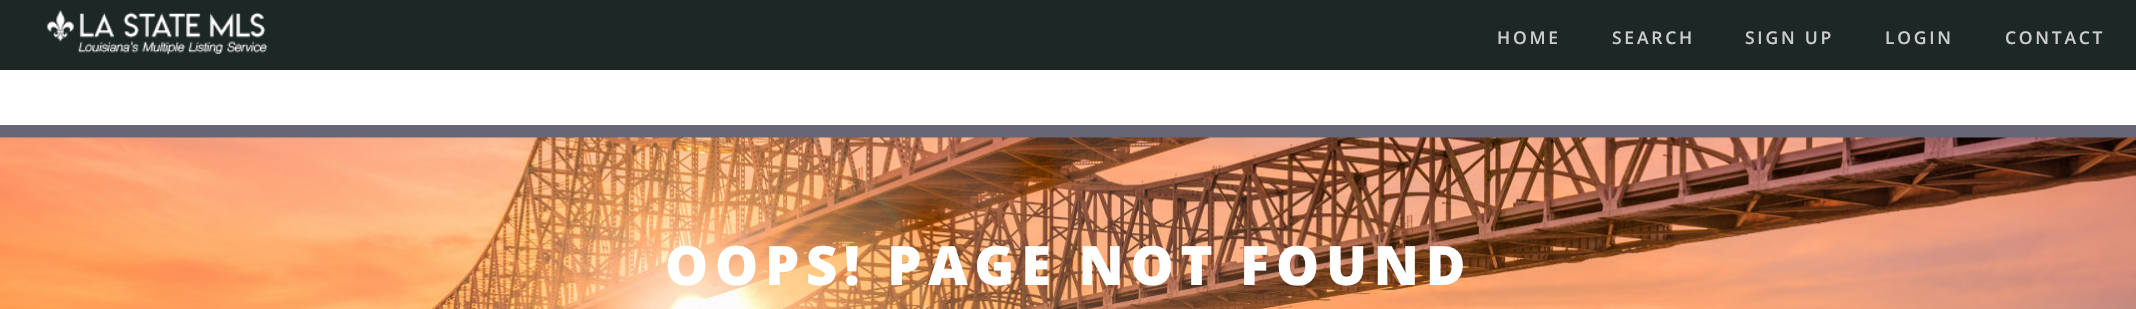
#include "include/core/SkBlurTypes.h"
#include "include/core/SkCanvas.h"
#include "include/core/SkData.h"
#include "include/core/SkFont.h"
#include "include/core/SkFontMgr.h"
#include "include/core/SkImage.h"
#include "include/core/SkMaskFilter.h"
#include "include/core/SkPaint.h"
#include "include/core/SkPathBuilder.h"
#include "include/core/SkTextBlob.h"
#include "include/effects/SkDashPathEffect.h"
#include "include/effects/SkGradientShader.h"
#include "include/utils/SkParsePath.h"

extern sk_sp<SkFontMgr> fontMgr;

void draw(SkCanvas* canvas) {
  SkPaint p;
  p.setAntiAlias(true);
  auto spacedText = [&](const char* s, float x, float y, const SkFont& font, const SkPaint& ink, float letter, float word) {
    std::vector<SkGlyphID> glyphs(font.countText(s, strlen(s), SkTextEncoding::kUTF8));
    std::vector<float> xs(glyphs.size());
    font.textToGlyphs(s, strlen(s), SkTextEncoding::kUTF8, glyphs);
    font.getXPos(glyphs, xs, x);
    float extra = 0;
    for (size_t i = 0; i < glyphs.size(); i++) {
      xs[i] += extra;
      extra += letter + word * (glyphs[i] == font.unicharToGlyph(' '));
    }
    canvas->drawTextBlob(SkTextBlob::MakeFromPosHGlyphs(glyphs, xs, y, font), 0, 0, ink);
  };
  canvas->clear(SK_ColorWHITE);
  p.setColor(SkColorSetRGB(29, 39, 38));
  canvas->drawRect(SkRect::MakeLTRB(0, 0, 2136, 70), p);
  canvas->drawImageRect(SkImages::DeferredFromEncodedData(SkData::MakeFromFileName("images/1.png")), SkRect::MakeLTRB(46, 10, 268, 55), SkSamplingOptions());
  p.setColor(SkColorSetRGB(102, 102, 119));
  canvas->drawRect(SkRect::MakeLTRB(0, 125, 2136, 138), p);
  canvas->drawImageRect(SkImages::DeferredFromEncodedData(SkData::MakeFromFileName("images/2.png")), SkRect::MakeLTRB(0, 137, 2136, 309), SkSamplingOptions());
  SkFont font1(fontMgr->matchFamilyStyle("Open Sans", SkFontStyle(600, SkFontStyle::kNormal_Width, SkFontStyle::kUpright_Slant)), 17.5f);
  font1.setSubpixel(true);
  p.setColor(SkColorSetRGB(204, 204, 204));
  spacedText("HOME", 1497, 44, font1, p, 2.75f, 0);
  spacedText("SEARCH", 1612, 44, font1, p, 2.75f, 0);
  spacedText("SIGN UP", 1745, 44, font1, p, 2.75f, 0);
  spacedText("LOGIN", 1885, 44, font1, p, 2.75f, 0);
  spacedText("CONTACT", 2005, 44, font1, p, 2.75f, 0);
  SkFont font2(fontMgr->matchFamilyStyle("Open Sans", SkFontStyle(800, SkFontStyle::kNormal_Width, SkFontStyle::kUpright_Slant)), 54.2f);
  font2.setSubpixel(true);
  p.setColor(SK_ColorWHITE);
  spacedText("OOPS! PAGE NOT FOUND", 665, 285, font2, p, 6.75f, 0);
}
